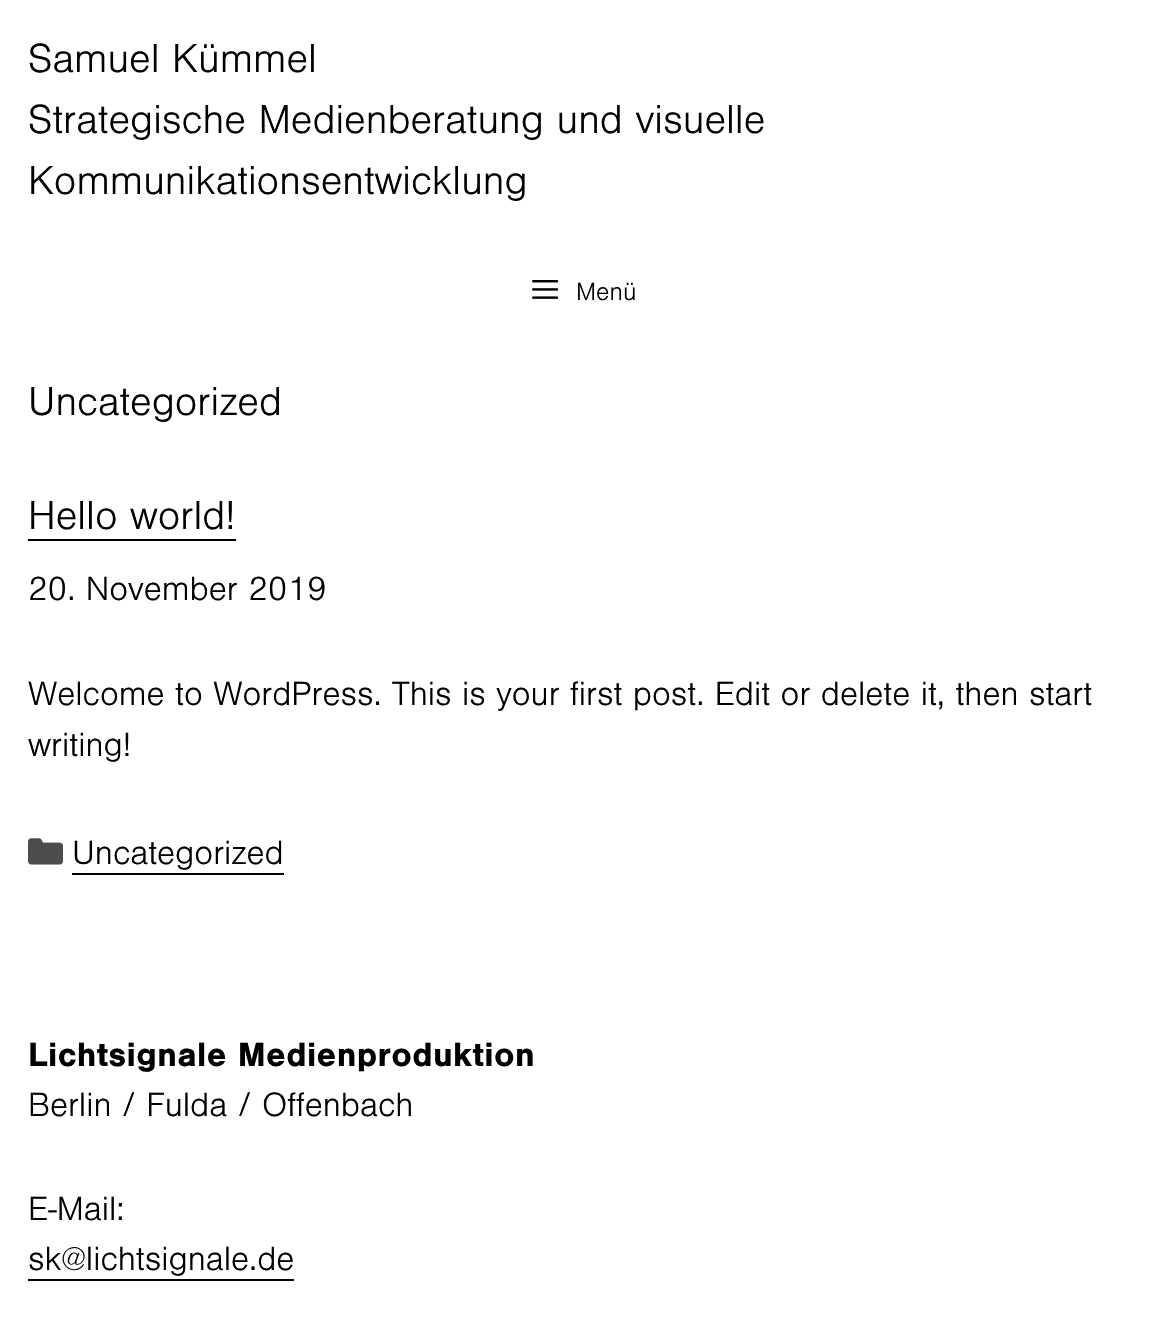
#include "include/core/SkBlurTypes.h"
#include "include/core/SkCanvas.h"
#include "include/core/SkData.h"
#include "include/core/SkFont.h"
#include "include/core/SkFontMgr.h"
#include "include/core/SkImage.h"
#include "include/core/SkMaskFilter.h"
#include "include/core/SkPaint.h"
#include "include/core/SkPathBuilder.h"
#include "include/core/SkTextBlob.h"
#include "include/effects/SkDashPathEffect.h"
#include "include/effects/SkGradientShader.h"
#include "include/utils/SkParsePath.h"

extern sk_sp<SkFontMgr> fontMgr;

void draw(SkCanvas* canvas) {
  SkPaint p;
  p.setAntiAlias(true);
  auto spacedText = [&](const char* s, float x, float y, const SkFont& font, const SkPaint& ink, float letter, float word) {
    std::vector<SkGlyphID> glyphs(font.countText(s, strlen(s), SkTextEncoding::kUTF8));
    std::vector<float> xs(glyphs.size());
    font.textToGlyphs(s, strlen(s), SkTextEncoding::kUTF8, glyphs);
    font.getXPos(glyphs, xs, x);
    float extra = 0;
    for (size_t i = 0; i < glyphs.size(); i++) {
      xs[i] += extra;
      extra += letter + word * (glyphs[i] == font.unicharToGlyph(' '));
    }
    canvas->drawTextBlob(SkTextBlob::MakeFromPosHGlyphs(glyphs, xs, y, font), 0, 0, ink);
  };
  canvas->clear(SK_ColorWHITE);
  canvas->drawImageRect(SkImages::DeferredFromEncodedData(SkData::MakeFromFileName("images/1.png")), SkRect::MakeLTRB(532, 280, 559, 299), SkSamplingOptions());
  p.setColor(SK_ColorBLACK);
  canvas->drawRect(SkRect::MakeLTRB(28, 539, 236, 541), p);
  canvas->drawImageRect(SkImages::DeferredFromEncodedData(SkData::MakeFromFileName("images/2.png")), SkRect::MakeLTRB(28, 838, 63, 865), SkSamplingOptions());
  canvas->drawRect(SkRect::MakeLTRB(72, 873, 284, 875), p);
  canvas->drawRect(SkRect::MakeLTRB(28, 1279, 294, 1281), p);
  SkFont font1(fontMgr->matchFamilyStyle("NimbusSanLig", SkFontStyle::Normal()), 42);
  font1.setSubpixel(true);
  canvas->drawString("Samuel Kümmel", 28, 72, font1, p);
  canvas->drawString("Strategische Medienberatung und visuelle", 28, 133, font1, p);
  canvas->drawString("Kommunikationsentwicklung", 28, 194, font1, p);
  SkFont font2(fontMgr->matchFamilyStyle("NimbusSanLig", SkFontStyle::Normal()), 26);
  font2.setSubpixel(true);
  canvas->drawString("Menü", 576, 300, font2, p);
  canvas->drawString("Uncategorized", 28, 415, font1, p);
  canvas->drawString("Hello world!", 28, 529, font1, p);
  SkFont font3(fontMgr->matchFamilyStyle("NimbusSanLig", SkFontStyle::Normal()), 35);
  font3.setSubpixel(true);
  canvas->drawString("20. November 2019", 28, 600, font3, p);
  canvas->drawString("Welcome to WordPress. This is your first post. Edit or delete it, then start", 28, 705, font3, p);
  canvas->drawString("writing!", 28, 756, font3, p);
  canvas->drawString("Uncategorized", 72, 864, font3, p);
  SkFont font4(fontMgr->matchFamilyStyle("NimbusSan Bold", SkFontStyle::Bold()), 35);
  font4.setSubpixel(true);
  spacedText("Lichtsignale Medienproduktion", 28, 1066, font4, p, 0.35f, 0);
  canvas->drawString("Berlin / Fulda / Offenbach", 28, 1116, font3, p);
  canvas->drawString("E-Mail:", 28, 1220, font3, p);
  canvas->drawString("sk@lichtsignale.de", 28, 1270, font3, p);
}
